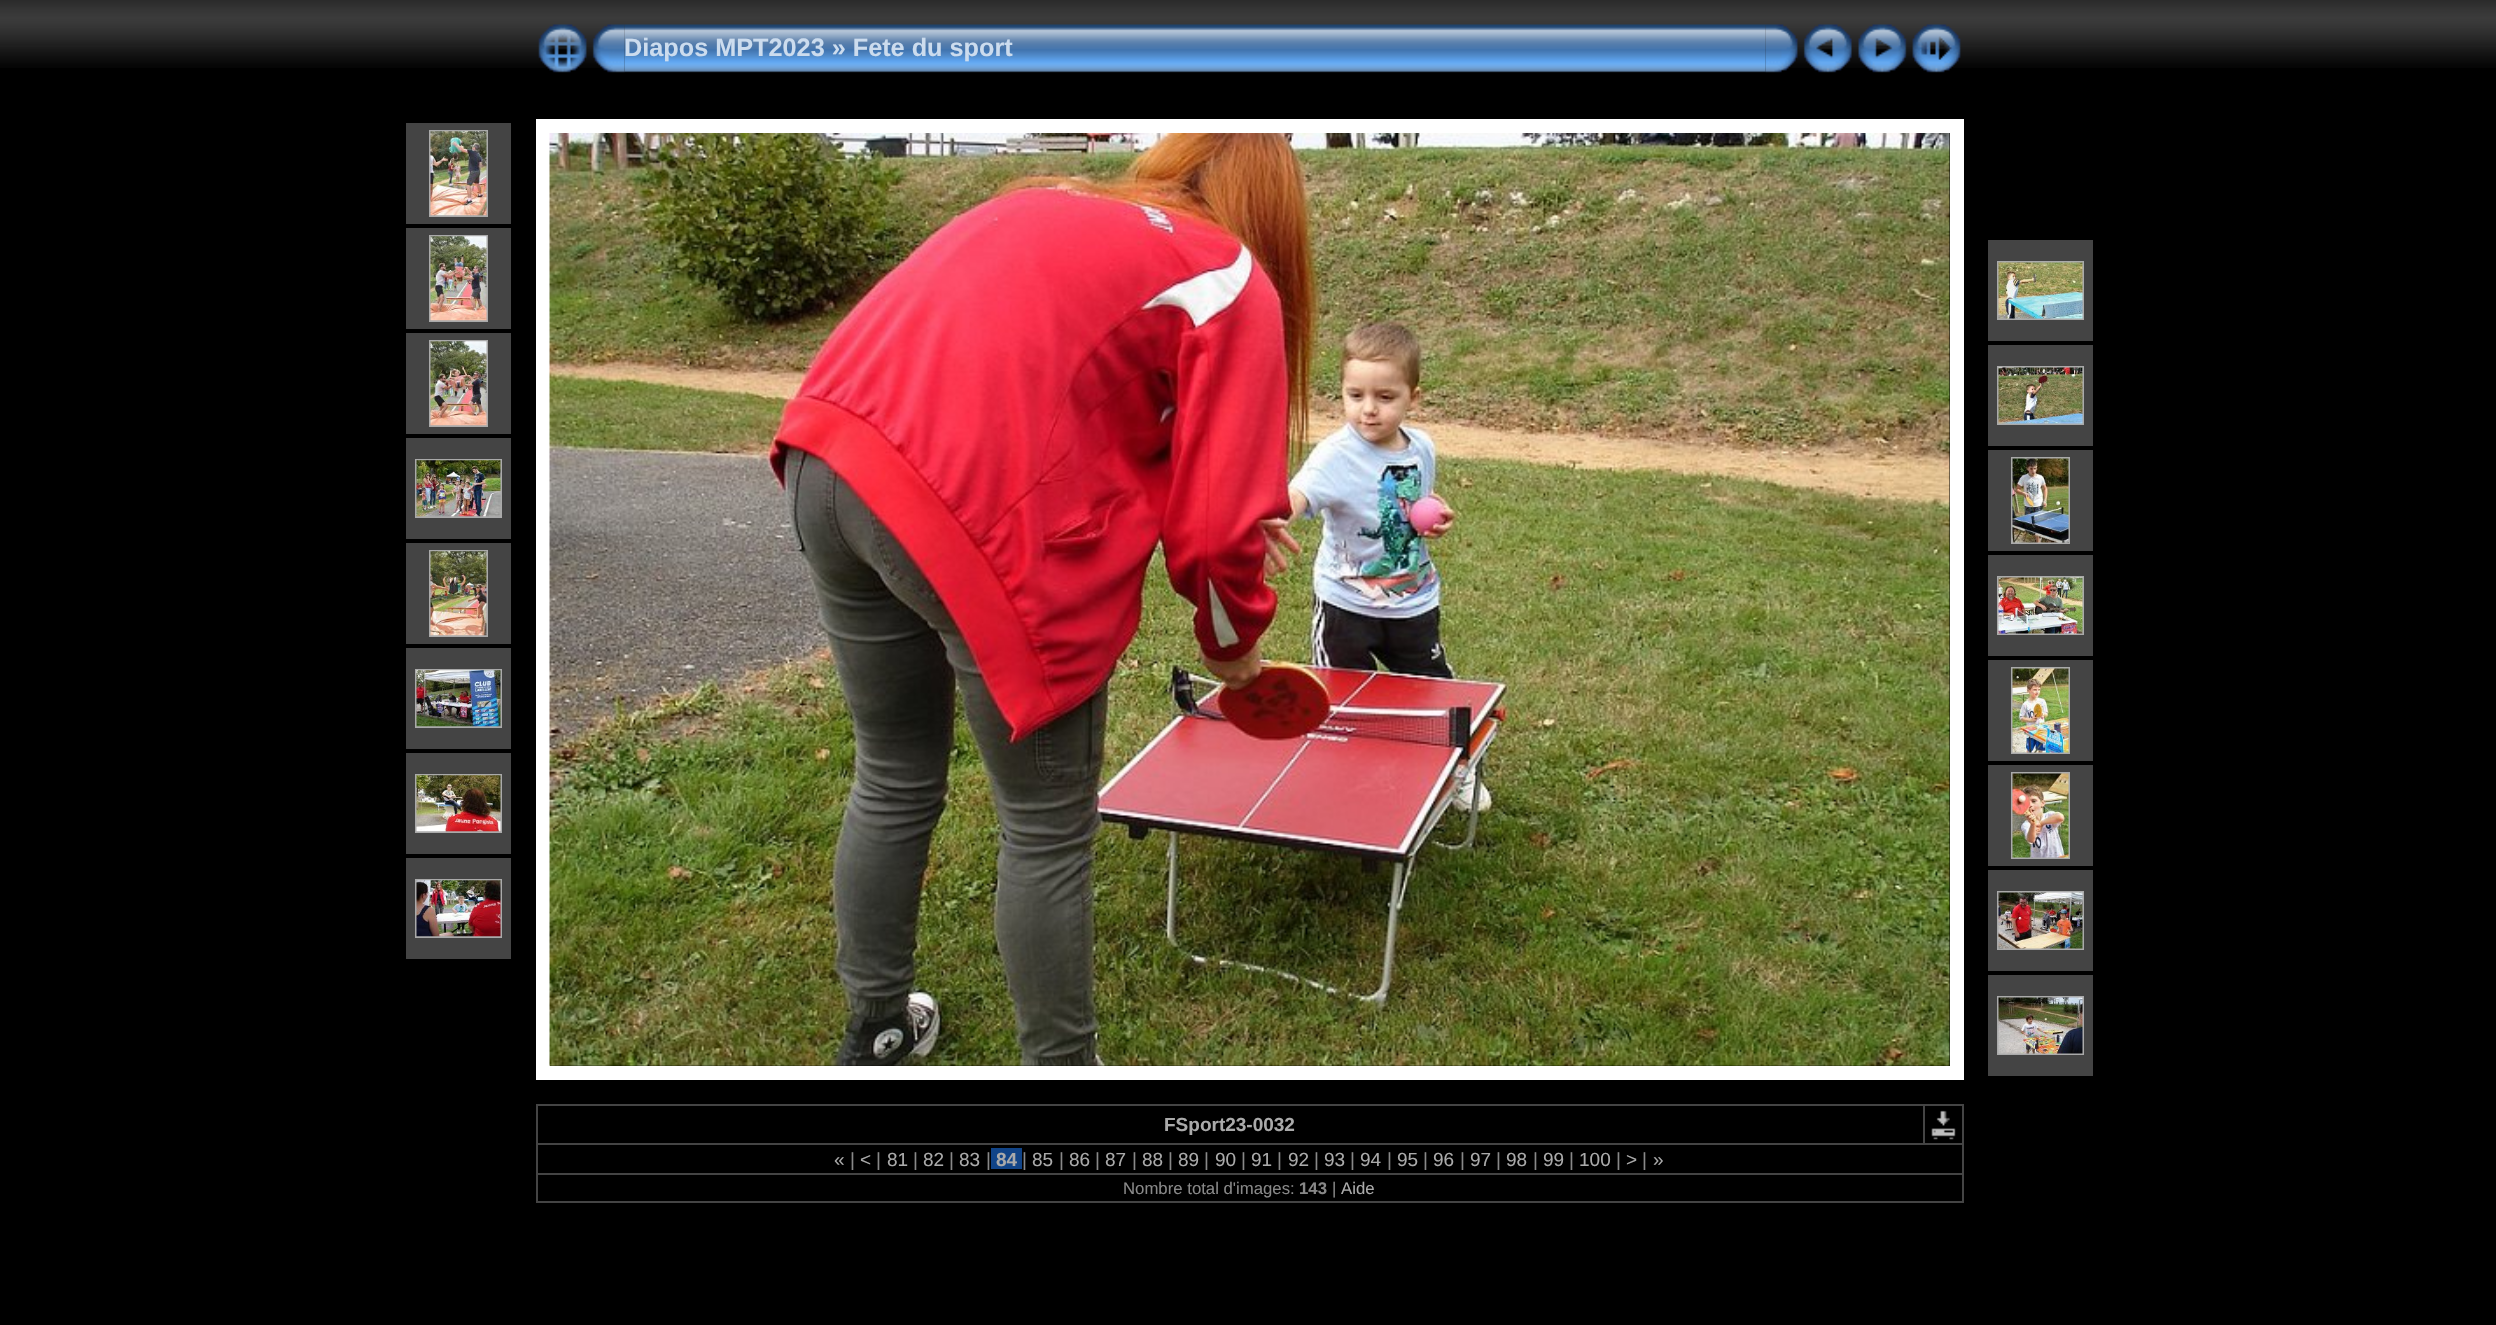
#include "include/core/SkBlurTypes.h"
#include "include/core/SkCanvas.h"
#include "include/core/SkData.h"
#include "include/core/SkFont.h"
#include "include/core/SkFontMgr.h"
#include "include/core/SkImage.h"
#include "include/core/SkMaskFilter.h"
#include "include/core/SkPaint.h"
#include "include/core/SkPathBuilder.h"
#include "include/core/SkTextBlob.h"
#include "include/effects/SkDashPathEffect.h"
#include "include/effects/SkGradientShader.h"
#include "include/utils/SkParsePath.h"

extern sk_sp<SkFontMgr> fontMgr;

void draw(SkCanvas* canvas) {
  SkPaint p;
  p.setAntiAlias(true);
  canvas->clear(SK_ColorBLACK);
  canvas->drawImageRect(SkImages::DeferredFromEncodedData(SkData::MakeFromFileName("images/1.png")), SkRect::MakeLTRB(0, 0, 2496, 68), SkSamplingOptions());
  canvas->drawImageRect(SkImages::DeferredFromEncodedData(SkData::MakeFromFileName("images/2.png")), SkRect::MakeLTRB(538, 24, 587, 73), SkSamplingOptions());
  canvas->drawImageRect(SkImages::DeferredFromEncodedData(SkData::MakeFromFileName("images/4.png")), SkRect::MakeLTRB(624, 24, 1766, 73), SkSamplingOptions());
  canvas->drawImageRect(SkImages::DeferredFromEncodedData(SkData::MakeFromFileName("images/3.png")), SkRect::MakeLTRB(592, 24, 625, 73), SkSamplingOptions());
  canvas->drawImageRect(SkImages::DeferredFromEncodedData(SkData::MakeFromFileName("images/5.png")), SkRect::MakeLTRB(1765, 24, 1798, 73), SkSamplingOptions());
  canvas->drawImageRect(SkImages::DeferredFromEncodedData(SkData::MakeFromFileName("images/6.png")), SkRect::MakeLTRB(1803, 24, 1852, 73), SkSamplingOptions());
  canvas->drawImageRect(SkImages::DeferredFromEncodedData(SkData::MakeFromFileName("images/7.png")), SkRect::MakeLTRB(1858, 24, 1907, 73), SkSamplingOptions());
  canvas->drawImageRect(SkImages::DeferredFromEncodedData(SkData::MakeFromFileName("images/8.png")), SkRect::MakeLTRB(1912, 24, 1961, 73), SkSamplingOptions());
  p.setColor(SkColorSetRGB(68, 68, 68));
  canvas->drawRect(SkRect::MakeLTRB(406, 123, 511, 224), p);
  p.setStyle(SkPaint::kStroke_Style);
  p.setStrokeWidth(2);
  p.setColor(SkColorSetRGB(170, 170, 170));
  canvas->drawRect(SkRect::MakeLTRB(430, 131, 487, 216), p);
  canvas->drawImageRect(SkImages::DeferredFromEncodedData(SkData::MakeFromFileName("images/9.png")), SkRect::MakeLTRB(430, 131, 487, 216), SkSamplingOptions());
  p.setStyle(SkPaint::kFill_Style);
  p.setColor(SkColorSetRGB(68, 68, 68));
  canvas->drawRect(SkRect::MakeLTRB(406, 228, 511, 329), p);
  p.setStyle(SkPaint::kStroke_Style);
  p.setColor(SkColorSetRGB(170, 170, 170));
  canvas->drawRect(SkRect::MakeLTRB(430, 236, 487, 321), p);
  canvas->drawImageRect(SkImages::DeferredFromEncodedData(SkData::MakeFromFileName("images/10.png")), SkRect::MakeLTRB(430, 236, 487, 321), SkSamplingOptions());
  p.setStyle(SkPaint::kFill_Style);
  p.setColor(SkColorSetRGB(68, 68, 68));
  canvas->drawRect(SkRect::MakeLTRB(406, 333, 511, 434), p);
  p.setStyle(SkPaint::kStroke_Style);
  p.setColor(SkColorSetRGB(170, 170, 170));
  canvas->drawRect(SkRect::MakeLTRB(430, 341, 487, 426), p);
  canvas->drawImageRect(SkImages::DeferredFromEncodedData(SkData::MakeFromFileName("images/11.png")), SkRect::MakeLTRB(430, 341, 487, 426), SkSamplingOptions());
  p.setStyle(SkPaint::kFill_Style);
  p.setColor(SkColorSetRGB(68, 68, 68));
  canvas->drawRect(SkRect::MakeLTRB(406, 438, 511, 539), p);
  p.setStyle(SkPaint::kStroke_Style);
  p.setColor(SkColorSetRGB(170, 170, 170));
  canvas->drawRect(SkRect::MakeLTRB(416, 460, 501, 517), p);
  canvas->drawImageRect(SkImages::DeferredFromEncodedData(SkData::MakeFromFileName("images/12.png")), SkRect::MakeLTRB(416, 460, 501, 517), SkSamplingOptions());
  p.setStyle(SkPaint::kFill_Style);
  p.setColor(SkColorSetRGB(68, 68, 68));
  canvas->drawRect(SkRect::MakeLTRB(406, 543, 511, 644), p);
  p.setStyle(SkPaint::kStroke_Style);
  p.setColor(SkColorSetRGB(170, 170, 170));
  canvas->drawRect(SkRect::MakeLTRB(430, 551, 487, 636), p);
  canvas->drawImageRect(SkImages::DeferredFromEncodedData(SkData::MakeFromFileName("images/13.png")), SkRect::MakeLTRB(430, 551, 487, 636), SkSamplingOptions());
  p.setStyle(SkPaint::kFill_Style);
  p.setColor(SkColorSetRGB(68, 68, 68));
  canvas->drawRect(SkRect::MakeLTRB(406, 648, 511, 749), p);
  p.setStyle(SkPaint::kStroke_Style);
  p.setColor(SkColorSetRGB(170, 170, 170));
  canvas->drawRect(SkRect::MakeLTRB(416, 670, 501, 727), p);
  canvas->drawImageRect(SkImages::DeferredFromEncodedData(SkData::MakeFromFileName("images/14.png")), SkRect::MakeLTRB(416, 670, 501, 727), SkSamplingOptions());
  p.setStyle(SkPaint::kFill_Style);
  p.setColor(SkColorSetRGB(68, 68, 68));
  canvas->drawRect(SkRect::MakeLTRB(406, 753, 511, 854), p);
  p.setStyle(SkPaint::kStroke_Style);
  p.setColor(SkColorSetRGB(170, 170, 170));
  canvas->drawRect(SkRect::MakeLTRB(416, 775, 501, 832), p);
  canvas->drawImageRect(SkImages::DeferredFromEncodedData(SkData::MakeFromFileName("images/15.png")), SkRect::MakeLTRB(416, 775, 501, 832), SkSamplingOptions());
  p.setStyle(SkPaint::kFill_Style);
  p.setColor(SkColorSetRGB(68, 68, 68));
  canvas->drawRect(SkRect::MakeLTRB(406, 858, 511, 959), p);
  p.setStyle(SkPaint::kStroke_Style);
  p.setColor(SkColorSetRGB(170, 170, 170));
  canvas->drawRect(SkRect::MakeLTRB(416, 880, 501, 937), p);
  canvas->drawImageRect(SkImages::DeferredFromEncodedData(SkData::MakeFromFileName("images/16.png")), SkRect::MakeLTRB(416, 880, 501, 937), SkSamplingOptions());
  p.setStrokeWidth(14);
  p.setColor(SK_ColorWHITE);
  canvas->drawRect(SkRect::MakeLTRB(543, 126, 1957, 1073), p);
  canvas->drawImageRect(SkImages::DeferredFromEncodedData(SkData::MakeFromFileName("images/17.png")), SkRect::MakeLTRB(549, 133, 1950, 1066), SkSamplingOptions());
  p.setStyle(SkPaint::kFill_Style);
  p.setColor(SkColorSetRGB(68, 68, 68));
  canvas->drawRect(SkRect::MakeLTRB(1988, 240, 2093, 341), p);
  p.setStyle(SkPaint::kStroke_Style);
  p.setStrokeWidth(2);
  p.setColor(SkColorSetRGB(170, 170, 170));
  canvas->drawRect(SkRect::MakeLTRB(1998, 262, 2083, 319), p);
  canvas->drawImageRect(SkImages::DeferredFromEncodedData(SkData::MakeFromFileName("images/18.png")), SkRect::MakeLTRB(1998, 262, 2083, 319), SkSamplingOptions());
  p.setStyle(SkPaint::kFill_Style);
  p.setColor(SkColorSetRGB(68, 68, 68));
  canvas->drawRect(SkRect::MakeLTRB(1988, 345, 2093, 446), p);
  p.setStyle(SkPaint::kStroke_Style);
  p.setColor(SkColorSetRGB(170, 170, 170));
  canvas->drawRect(SkRect::MakeLTRB(1998, 367, 2083, 424), p);
  canvas->drawImageRect(SkImages::DeferredFromEncodedData(SkData::MakeFromFileName("images/19.png")), SkRect::MakeLTRB(1998, 367, 2083, 424), SkSamplingOptions());
  p.setStyle(SkPaint::kFill_Style);
  p.setColor(SkColorSetRGB(68, 68, 68));
  canvas->drawRect(SkRect::MakeLTRB(1988, 450, 2093, 551), p);
  p.setStyle(SkPaint::kStroke_Style);
  p.setColor(SkColorSetRGB(170, 170, 170));
  canvas->drawRect(SkRect::MakeLTRB(2012, 458, 2069, 543), p);
  canvas->drawImageRect(SkImages::DeferredFromEncodedData(SkData::MakeFromFileName("images/20.png")), SkRect::MakeLTRB(2012, 458, 2069, 543), SkSamplingOptions());
  p.setStyle(SkPaint::kFill_Style);
  p.setColor(SkColorSetRGB(68, 68, 68));
  canvas->drawRect(SkRect::MakeLTRB(1988, 555, 2093, 656), p);
  p.setStyle(SkPaint::kStroke_Style);
  p.setColor(SkColorSetRGB(170, 170, 170));
  canvas->drawRect(SkRect::MakeLTRB(1998, 577, 2083, 634), p);
  canvas->drawImageRect(SkImages::DeferredFromEncodedData(SkData::MakeFromFileName("images/21.png")), SkRect::MakeLTRB(1998, 577, 2083, 634), SkSamplingOptions());
  p.setStyle(SkPaint::kFill_Style);
  p.setColor(SkColorSetRGB(68, 68, 68));
  canvas->drawRect(SkRect::MakeLTRB(1988, 660, 2093, 761), p);
  p.setStyle(SkPaint::kStroke_Style);
  p.setColor(SkColorSetRGB(170, 170, 170));
  canvas->drawRect(SkRect::MakeLTRB(2012, 668, 2069, 753), p);
  canvas->drawImageRect(SkImages::DeferredFromEncodedData(SkData::MakeFromFileName("images/22.png")), SkRect::MakeLTRB(2012, 668, 2069, 753), SkSamplingOptions());
  p.setStyle(SkPaint::kFill_Style);
  p.setColor(SkColorSetRGB(68, 68, 68));
  canvas->drawRect(SkRect::MakeLTRB(1988, 765, 2093, 866), p);
  p.setStyle(SkPaint::kStroke_Style);
  p.setColor(SkColorSetRGB(170, 170, 170));
  canvas->drawRect(SkRect::MakeLTRB(2012, 773, 2069, 858), p);
  canvas->drawImageRect(SkImages::DeferredFromEncodedData(SkData::MakeFromFileName("images/23.png")), SkRect::MakeLTRB(2012, 773, 2069, 858), SkSamplingOptions());
  p.setStyle(SkPaint::kFill_Style);
  p.setColor(SkColorSetRGB(68, 68, 68));
  canvas->drawRect(SkRect::MakeLTRB(1988, 870, 2093, 971), p);
  p.setStyle(SkPaint::kStroke_Style);
  p.setColor(SkColorSetRGB(170, 170, 170));
  canvas->drawRect(SkRect::MakeLTRB(1998, 892, 2083, 949), p);
  canvas->drawImageRect(SkImages::DeferredFromEncodedData(SkData::MakeFromFileName("images/24.png")), SkRect::MakeLTRB(1998, 892, 2083, 949), SkSamplingOptions());
  p.setStyle(SkPaint::kFill_Style);
  p.setColor(SkColorSetRGB(68, 68, 68));
  canvas->drawRect(SkRect::MakeLTRB(1988, 975, 2093, 1076), p);
  p.setStyle(SkPaint::kStroke_Style);
  p.setColor(SkColorSetRGB(170, 170, 170));
  canvas->drawRect(SkRect::MakeLTRB(1998, 997, 2083, 1054), p);
  canvas->drawImageRect(SkImages::DeferredFromEncodedData(SkData::MakeFromFileName("images/25.png")), SkRect::MakeLTRB(1998, 997, 2083, 1054), SkSamplingOptions());
  p.setStyle(SkPaint::kFill_Style);
  p.setColor(SkColorSetRGB(68, 68, 68));
  canvas->drawRect(SkRect::MakeLTRB(536, 1104, 1964, 1106), p);
  canvas->drawRect(SkRect::MakeLTRB(1962, 1104, 1964, 1202), p);
  canvas->drawRect(SkRect::MakeLTRB(536, 1201, 1964, 1203), p);
  canvas->drawRect(SkRect::MakeLTRB(536, 1104, 538, 1202), p);
  canvas->drawRect(SkRect::MakeLTRB(536, 1143, 1964, 1145), p);
  canvas->drawRect(SkRect::MakeLTRB(1923, 1104, 1925, 1145), p);
  canvas->drawImageRect(SkImages::DeferredFromEncodedData(SkData::MakeFromFileName("images/26.png")), SkRect::MakeLTRB(1931, 1110, 1956, 1140), SkSamplingOptions());
  p.setColor(SkColorSetRGB(17, 68, 136));
  canvas->drawRect(SkRect::MakeLTRB(991, 1148, 1022, 1169), p);
  p.setColor(SkColorSetRGB(68, 68, 68));
  canvas->drawRect(SkRect::MakeLTRB(536, 1173, 1964, 1175), p);
  SkFont font1(fontMgr->matchFamilyStyle("Liberation Sans", SkFontStyle::Bold()), 25.25f);
  font1.setSubpixel(true);
  p.setColor(SkColorSetRGB(204, 220, 238));
  canvas->drawString("Diapos MPT2023 » Fete du sport", 624, 56, font1, p);
  SkFont font2(fontMgr->matchFamilyStyle("Liberation Sans", SkFontStyle::Bold()), 19);
  font2.setSubpixel(true);
  p.setColor(SkColorSetRGB(170, 170, 170));
  canvas->drawString("FSport23-0032", 1164, 1131, font2, p);
  SkFont font3(fontMgr->matchFamilyStyle("Liberation Sans", SkFontStyle::Normal()), 19);
  font3.setSubpixel(true);
  canvas->drawString("«", 834, 1166, font3, p);
  p.setColor(SkColorSetRGB(136, 136, 136));
  canvas->drawString("|", 850, 1166, font3, p);
  p.setColor(SkColorSetRGB(170, 170, 170));
  canvas->drawString("<", 860, 1166, font3, p);
  p.setColor(SkColorSetRGB(136, 136, 136));
  canvas->drawString("|", 876, 1166, font3, p);
  p.setColor(SkColorSetRGB(170, 170, 170));
  canvas->drawString("81", 887, 1166, font3, p);
  p.setColor(SkColorSetRGB(136, 136, 136));
  canvas->drawString("|", 913, 1166, font3, p);
  p.setColor(SkColorSetRGB(170, 170, 170));
  canvas->drawString("82", 923, 1166, font3, p);
  p.setColor(SkColorSetRGB(136, 136, 136));
  canvas->drawString("|", 949, 1166, font3, p);
  p.setColor(SkColorSetRGB(170, 170, 170));
  canvas->drawString("83", 959, 1166, font3, p);
  p.setColor(SkColorSetRGB(136, 136, 136));
  canvas->drawString("|", 986, 1166, font3, p);
  p.setColor(SkColorSetRGB(170, 170, 170));
  canvas->drawString("84", 996, 1166, font2, p);
  p.setColor(SkColorSetRGB(136, 136, 136));
  canvas->drawString("|", 1022, 1166, font3, p);
  p.setColor(SkColorSetRGB(170, 170, 170));
  canvas->drawString("85", 1032, 1166, font3, p);
  p.setColor(SkColorSetRGB(136, 136, 136));
  canvas->drawString("|", 1059, 1166, font3, p);
  p.setColor(SkColorSetRGB(170, 170, 170));
  canvas->drawString("86", 1069, 1166, font3, p);
  p.setColor(SkColorSetRGB(136, 136, 136));
  canvas->drawString("|", 1095, 1166, font3, p);
  p.setColor(SkColorSetRGB(170, 170, 170));
  canvas->drawString("87", 1105, 1166, font3, p);
  p.setColor(SkColorSetRGB(136, 136, 136));
  canvas->drawString("|", 1132, 1166, font3, p);
  p.setColor(SkColorSetRGB(170, 170, 170));
  canvas->drawString("88", 1142, 1166, font3, p);
  p.setColor(SkColorSetRGB(136, 136, 136));
  canvas->drawString("|", 1168, 1166, font3, p);
  p.setColor(SkColorSetRGB(170, 170, 170));
  canvas->drawString("89", 1178, 1166, font3, p);
  p.setColor(SkColorSetRGB(136, 136, 136));
  canvas->drawString("|", 1204, 1166, font3, p);
  p.setColor(SkColorSetRGB(170, 170, 170));
  canvas->drawString("90", 1215, 1166, font3, p);
  p.setColor(SkColorSetRGB(136, 136, 136));
  canvas->drawString("|", 1241, 1166, font3, p);
  p.setColor(SkColorSetRGB(170, 170, 170));
  canvas->drawString("91", 1251, 1166, font3, p);
  p.setColor(SkColorSetRGB(136, 136, 136));
  canvas->drawString("|", 1277, 1166, font3, p);
  p.setColor(SkColorSetRGB(170, 170, 170));
  canvas->drawString("92", 1288, 1166, font3, p);
  p.setColor(SkColorSetRGB(136, 136, 136));
  canvas->drawString("|", 1314, 1166, font3, p);
  p.setColor(SkColorSetRGB(170, 170, 170));
  canvas->drawString("93", 1324, 1166, font3, p);
  p.setColor(SkColorSetRGB(136, 136, 136));
  canvas->drawString("|", 1350, 1166, font3, p);
  p.setColor(SkColorSetRGB(170, 170, 170));
  canvas->drawString("94", 1360, 1166, font3, p);
  p.setColor(SkColorSetRGB(136, 136, 136));
  canvas->drawString("|", 1387, 1166, font3, p);
  p.setColor(SkColorSetRGB(170, 170, 170));
  canvas->drawString("95", 1397, 1166, font3, p);
  p.setColor(SkColorSetRGB(136, 136, 136));
  canvas->drawString("|", 1423, 1166, font3, p);
  p.setColor(SkColorSetRGB(170, 170, 170));
  canvas->drawString("96", 1433, 1166, font3, p);
  p.setColor(SkColorSetRGB(136, 136, 136));
  canvas->drawString("|", 1460, 1166, font3, p);
  p.setColor(SkColorSetRGB(170, 170, 170));
  canvas->drawString("97", 1470, 1166, font3, p);
  p.setColor(SkColorSetRGB(136, 136, 136));
  canvas->drawString("|", 1496, 1166, font3, p);
  p.setColor(SkColorSetRGB(170, 170, 170));
  canvas->drawString("98", 1506, 1166, font3, p);
  p.setColor(SkColorSetRGB(136, 136, 136));
  canvas->drawString("|", 1533, 1166, font3, p);
  p.setColor(SkColorSetRGB(170, 170, 170));
  canvas->drawString("99", 1543, 1166, font3, p);
  p.setColor(SkColorSetRGB(136, 136, 136));
  canvas->drawString("|", 1569, 1166, font3, p);
  p.setColor(SkColorSetRGB(170, 170, 170));
  canvas->drawString("100", 1579, 1166, font3, p);
  p.setColor(SkColorSetRGB(136, 136, 136));
  canvas->drawString("|", 1616, 1166, font3, p);
  p.setColor(SkColorSetRGB(170, 170, 170));
  canvas->drawString(">", 1626, 1166, font3, p);
  p.setColor(SkColorSetRGB(136, 136, 136));
  canvas->drawString("|", 1642, 1166, font3, p);
  p.setColor(SkColorSetRGB(170, 170, 170));
  canvas->drawString("»", 1653, 1166, font3, p);
  SkFont font4(fontMgr->matchFamilyStyle("Liberation Sans", SkFontStyle::Normal()), 16.75f);
  font4.setSubpixel(true);
  p.setColor(SkColorSetRGB(136, 136, 136));
  canvas->drawString("Nombre total d'images:", 1123, 1194, font4, p);
  SkFont font5(fontMgr->matchFamilyStyle("Liberation Sans", SkFontStyle::Bold()), 16.75f);
  font5.setSubpixel(true);
  canvas->drawString("143", 1299, 1194, font5, p);
  canvas->drawString("|", 1332, 1194, font4, p);
  p.setColor(SkColorSetRGB(170, 170, 170));
  canvas->drawString("Aide", 1341, 1194, font4, p);
}
